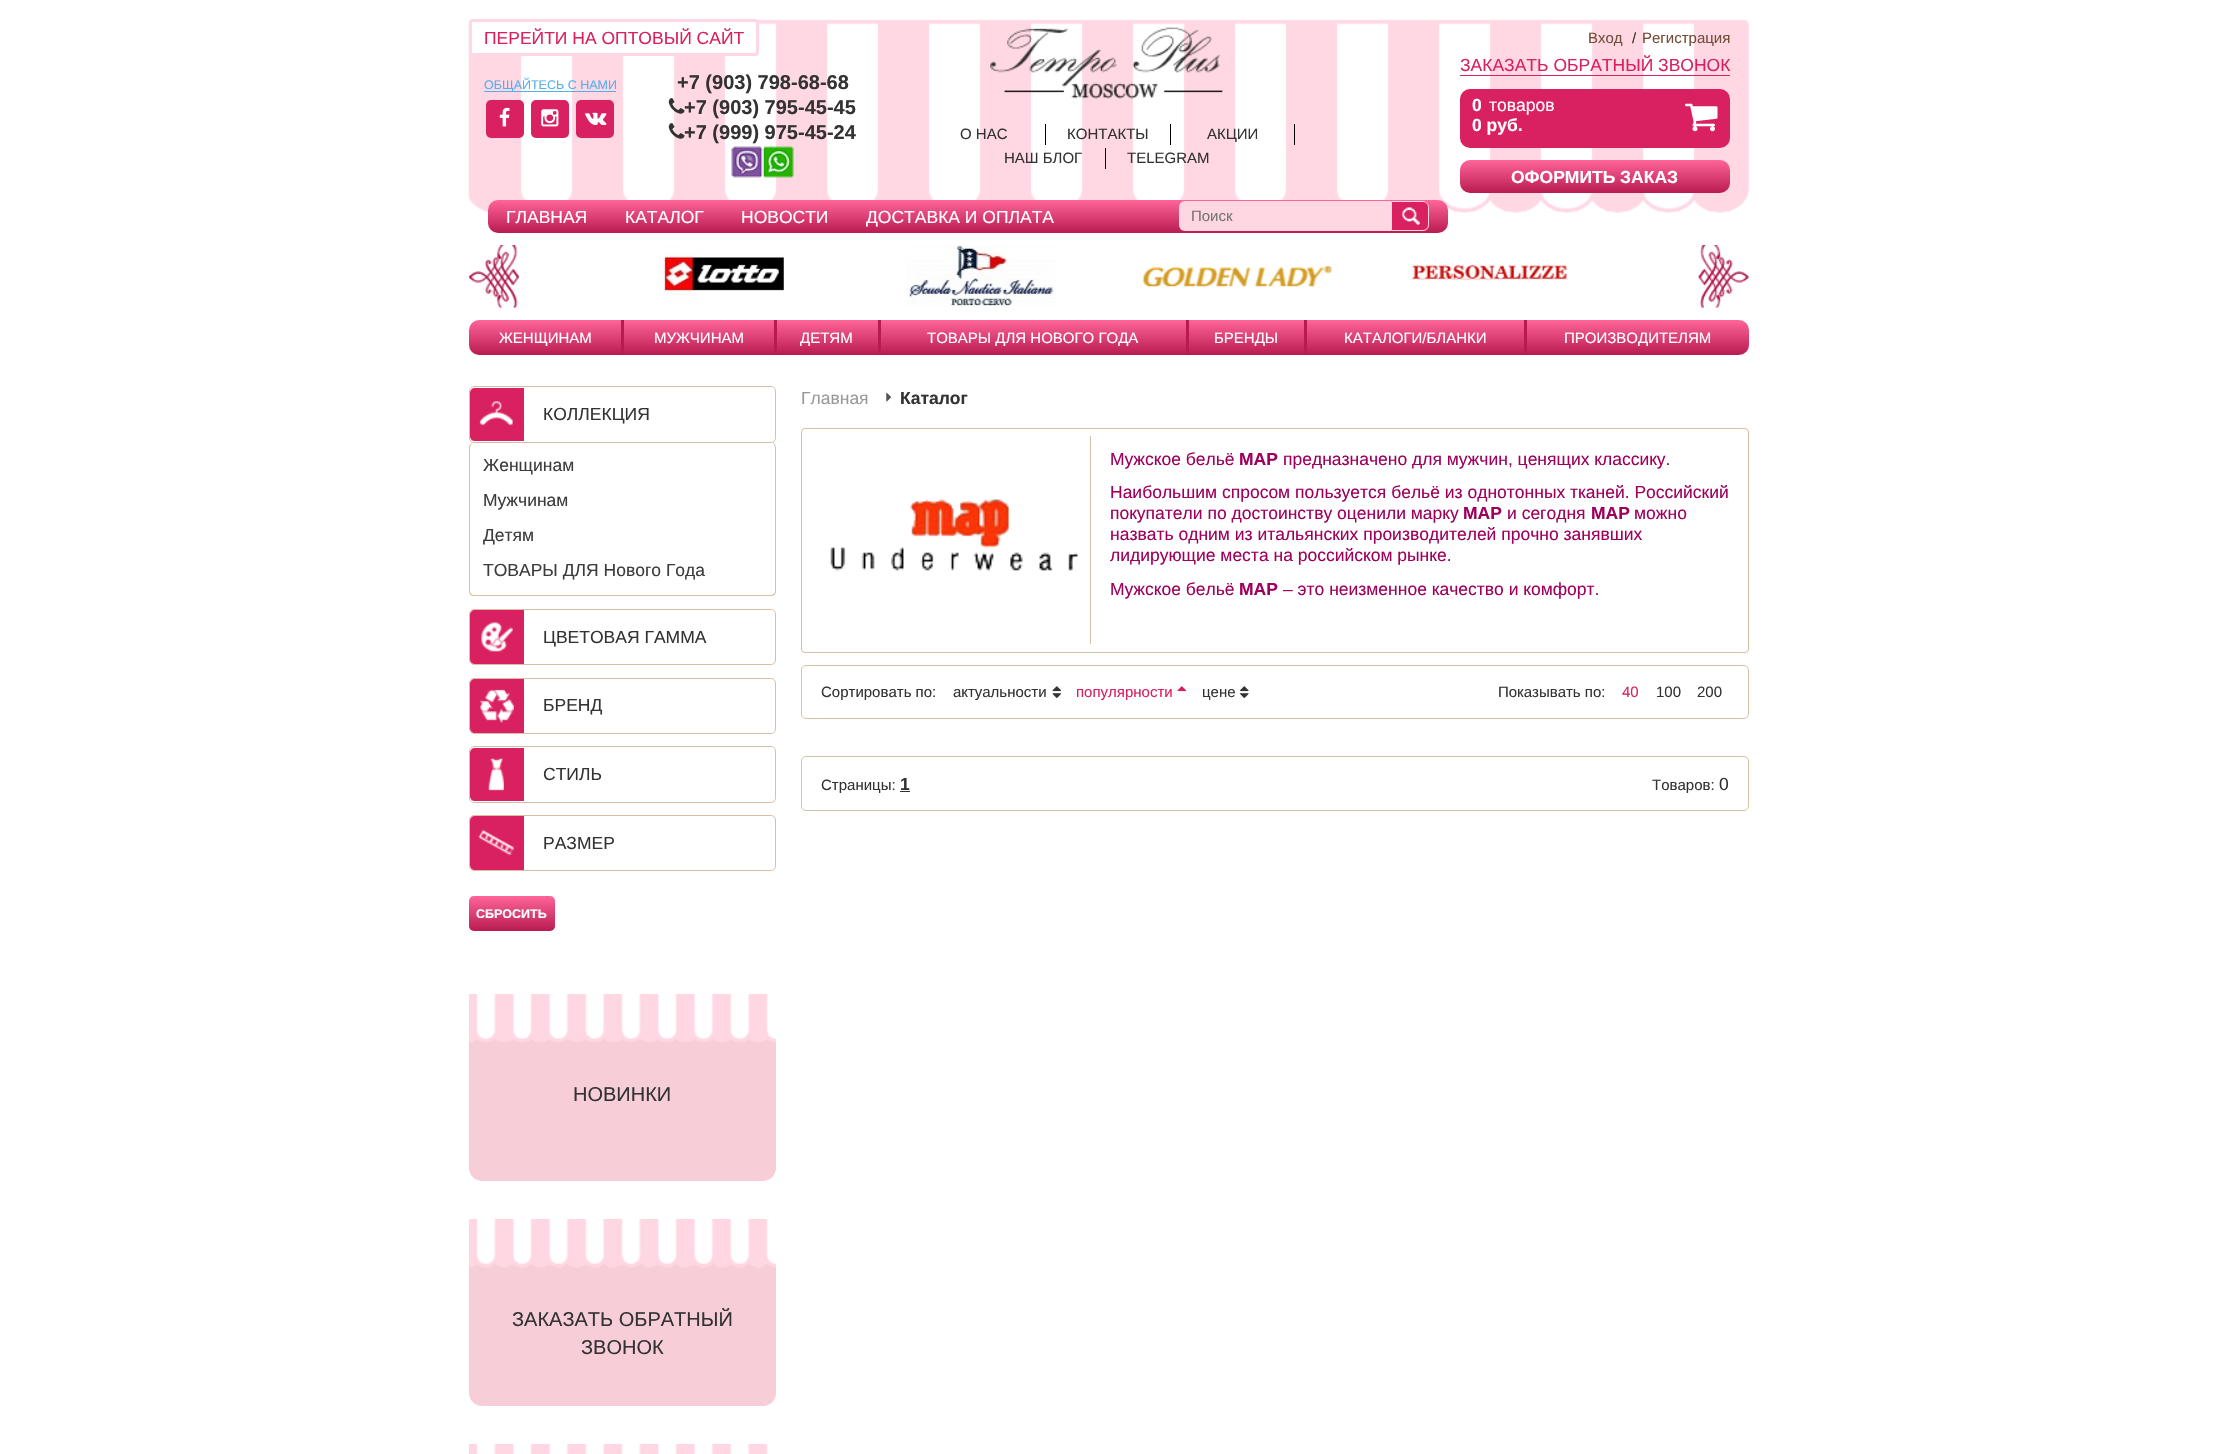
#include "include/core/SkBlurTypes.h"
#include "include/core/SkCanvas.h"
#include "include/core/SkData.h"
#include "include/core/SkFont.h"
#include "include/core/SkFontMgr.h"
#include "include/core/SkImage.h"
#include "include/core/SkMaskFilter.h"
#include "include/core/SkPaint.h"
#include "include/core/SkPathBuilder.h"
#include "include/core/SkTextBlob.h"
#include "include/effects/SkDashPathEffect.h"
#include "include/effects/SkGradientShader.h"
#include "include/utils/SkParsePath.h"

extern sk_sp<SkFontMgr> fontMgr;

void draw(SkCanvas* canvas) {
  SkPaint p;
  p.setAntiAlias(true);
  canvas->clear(SK_ColorWHITE);
  canvas->drawImageRect(SkImages::DeferredFromEncodedData(SkData::MakeFromFileName("images/1.png")), SkRect::MakeLTRB(468, 19, 1749, 213), SkSamplingOptions());
  p.setColor(SK_ColorWHITE);
  canvas->drawRoundRect(SkRect::MakeLTRB(470.5f, 20.5f, 757.5f, 54.5f), 2.5f, 2.5f, p);
  p.setStyle(SkPaint::kStroke_Style);
  p.setStrokeWidth(3);
  p.setColor(SkColorSetRGB(255, 215, 226));
  canvas->drawRoundRect(SkRect::MakeLTRB(470.5f, 20.5f, 757.5f, 54.5f), 2.5f, 2.5f, p);
  p.setStyle(SkPaint::kFill_Style);
  p.setColor(SkColorSetRGB(85, 174, 237));
  canvas->drawRect(SkRect::MakeLTRB(484, 91, 616, 92), p);
  p.setColor(SkColorSetRGB(217, 32, 96));
  canvas->drawRoundRect(SkRect::MakeLTRB(486, 100, 524, 138), 5, 5, p);
  canvas->drawImageRect(SkImages::DeferredFromEncodedData(SkData::MakeFromFileName("images/2.png")), SkRect::MakeLTRB(499, 107, 510, 127), SkSamplingOptions());
  canvas->drawRoundRect(SkRect::MakeLTRB(531, 100, 569, 138), 5, 5, p);
  canvas->drawImageRect(SkImages::DeferredFromEncodedData(SkData::MakeFromFileName("images/3.png")), SkRect::MakeLTRB(541, 109, 559, 127), SkSamplingOptions());
  canvas->drawRoundRect(SkRect::MakeLTRB(576, 100, 614, 138), 5, 5, p);
  canvas->drawImageRect(SkImages::DeferredFromEncodedData(SkData::MakeFromFileName("images/4.png")), SkRect::MakeLTRB(585, 112, 607, 125), SkSamplingOptions());
  canvas->drawImageRect(SkImages::DeferredFromEncodedData(SkData::MakeFromFileName("images/5.png")), SkRect::MakeLTRB(668, 98, 685, 114), SkSamplingOptions());
  canvas->drawImageRect(SkImages::DeferredFromEncodedData(SkData::MakeFromFileName("images/5.png")), SkRect::MakeLTRB(668, 123, 685, 139), SkSamplingOptions());
  canvas->drawImageRect(SkImages::DeferredFromEncodedData(SkData::MakeFromFileName("images/6.png")), SkRect::MakeLTRB(731, 146, 794, 178), SkSamplingOptions());
  canvas->drawImageRect(SkImages::DeferredFromEncodedData(SkData::MakeFromFileName("images/7.png")), SkRect::MakeLTRB(990, 27, 1223, 99), SkSamplingOptions());
  p.setColor(SK_ColorBLACK);
  canvas->drawRect(SkRect::MakeLTRB(1045, 124, 1046, 145), p);
  canvas->drawRect(SkRect::MakeLTRB(1170, 124, 1171, 145), p);
  canvas->drawRect(SkRect::MakeLTRB(1294, 124, 1295, 145), p);
  canvas->drawRect(SkRect::MakeLTRB(1105, 148, 1106, 169), p);
  p.setColor(SkColorSetRGB(217, 32, 96));
  canvas->drawRect(SkRect::MakeLTRB(1460, 75, 1730, 76), p);
  canvas->drawRoundRect(SkRect::MakeLTRB(1460, 89, 1730, 148), 10, 10, p);
  canvas->drawImageRect(SkImages::DeferredFromEncodedData(SkData::MakeFromFileName("images/8.png")), SkRect::MakeLTRB(1685, 103, 1718, 132), SkSamplingOptions());
  {
    const SkColor colors[] = {SkColorSetRGB(185, 27, 79), SkColorSetRGB(255, 101, 153)};
    const float stops[] = {0, 1};
    const SkPoint ends[] = {{1595, 193}, {1595, 160}};
    p.setShader(SkGradientShader::MakeLinear(ends, colors, stops, 2, SkTileMode::kClamp));
    p.setAlpha(255);
  }
  canvas->drawRoundRect(SkRect::MakeLTRB(1460, 160, 1730, 193), 10, 10, p);
  {
    const SkColor colors[] = {SkColorSetRGB(185, 27, 79), SkColorSetRGB(255, 101, 153)};
    const float stops[] = {0, 1};
    const SkPoint ends[] = {{968, 233}, {968, 200}};
    p.setShader(SkGradientShader::MakeLinear(ends, colors, stops, 2, SkTileMode::kClamp));
    p.setAlpha(255);
  }
  canvas->drawRoundRect(SkRect::MakeLTRB(488, 200, 1448, 233), 10, 10, p);
  p.setShader(nullptr);
  p.setColor(SkColorSetRGB(255, 215, 226));
  canvas->drawRoundRect(SkRect::MakeLTRB(1179, 201, 1429, 231), 6, 6, p);
  p.setColor(SkColorSetRGB(217, 32, 96));
  canvas->drawPath(SkPathBuilder().moveTo(1391, 201).lineTo(1423, 201).cubicTo(1426.5f, 201, 1429, 203.5f, 1429, 207).lineTo(1429, 225).cubicTo(1429, 228.5f, 1426.5f, 231, 1423, 231).lineTo(1391, 231).close().detach(), p);
  canvas->drawImageRect(SkImages::DeferredFromEncodedData(SkData::MakeFromFileName("images/9.png")), SkRect::MakeLTRB(1401, 207, 1420, 225), SkSamplingOptions());
  p.setStyle(SkPaint::kStroke_Style);
  p.setStrokeWidth(1);
  p.setColor(SkColorSetRGB(255, 215, 226));
  canvas->drawPath(SkPathBuilder().moveTo(1391.5f, 201.5f).lineTo(1423, 201.5f).cubicTo(1426, 201.5f, 1428.5f, 204, 1428.5f, 207).lineTo(1428.5f, 225).cubicTo(1428.5f, 228, 1426, 230.5f, 1423, 230.5f).lineTo(1391.5f, 230.5f).close().detach(), p);
  canvas->drawImageRect(SkImages::DeferredFromEncodedData(SkData::MakeFromFileName("images/10.png")), SkRect::MakeLTRB(468, 245, 519, 308), SkSamplingOptions());
  canvas->drawImageRect(SkImages::DeferredFromEncodedData(SkData::MakeFromFileName("images/11.png")), SkRect::MakeLTRB(1698, 245, 1749, 308), SkSamplingOptions());
  canvas->drawImageRect(SkImages::DeferredFromEncodedData(SkData::MakeFromFileName("images/12.png")), SkRect::MakeLTRB(662, 245, 785, 305), SkSamplingOptions());
  canvas->drawImageRect(SkImages::DeferredFromEncodedData(SkData::MakeFromFileName("images/13.png")), SkRect::MakeLTRB(906, 245, 1056, 306), SkSamplingOptions());
  canvas->drawImageRect(SkImages::DeferredFromEncodedData(SkData::MakeFromFileName("images/14.png")), SkRect::MakeLTRB(1143, 266, 1332, 287), SkSamplingOptions());
  canvas->drawImageRect(SkImages::DeferredFromEncodedData(SkData::MakeFromFileName("images/15.png")), SkRect::MakeLTRB(1411, 264, 1568, 281), SkSamplingOptions());
  canvas->drawImageRect(SkImages::DeferredFromEncodedData(SkData::MakeFromFileName("images/16.png")), SkRect::MakeLTRB(468, 245, 519, 308), SkSamplingOptions());
  canvas->drawImageRect(SkImages::DeferredFromEncodedData(SkData::MakeFromFileName("images/17.png")), SkRect::MakeLTRB(1698, 245, 1749, 308), SkSamplingOptions());
  p.setStyle(SkPaint::kFill_Style);
  {
    const SkColor colors[] = {SkColorSetRGB(185, 27, 79), SkColorSetRGB(255, 101, 153)};
    const float stops[] = {0, 1};
    const SkPoint ends[] = {{1109, 355}, {1109, 320}};
    p.setShader(SkGradientShader::MakeLinear(ends, colors, stops, 2, SkTileMode::kClamp));
    p.setAlpha(255);
  }
  canvas->drawRoundRect(SkRect::MakeLTRB(469, 320, 1749, 355), 10, 10, p);
  p.setShader(nullptr);
  p.setColor(SkColorSetRGB(185, 27, 79));
  canvas->drawRect(SkRect::MakeLTRB(621, 320, 624, 355), p);
  canvas->drawRect(SkRect::MakeLTRB(774, 320, 777, 355), p);
  canvas->drawRect(SkRect::MakeLTRB(878, 320, 881, 355), p);
  canvas->drawRect(SkRect::MakeLTRB(1186, 320, 1189, 355), p);
  canvas->drawRect(SkRect::MakeLTRB(1304, 320, 1307, 355), p);
  canvas->drawRect(SkRect::MakeLTRB(1524, 320, 1527, 355), p);
  p.setStyle(SkPaint::kStroke_Style);
  p.setColor(SkColorSetRGB(217, 191, 166));
  canvas->drawRoundRect(SkRect::MakeLTRB(469.5f, 386.5f, 775.5f, 442.5f), 4.5f, 4.5f, p);
  p.setStyle(SkPaint::kFill_Style);
  p.setColor(SkColorSetRGB(217, 32, 96));
  canvas->drawPath(SkPathBuilder().moveTo(475, 388).lineTo(524, 388).lineTo(524, 441).lineTo(475, 441).cubicTo(472, 441, 470, 439, 470, 436).lineTo(470, 393).cubicTo(470, 390, 472, 388, 475, 388).close().detach(), p);
  canvas->drawImageRect(SkImages::DeferredFromEncodedData(SkData::MakeFromFileName("images/18.png")), SkRect::MakeLTRB(479, 401, 513, 426), SkSamplingOptions());
  p.setColor(SkColorSetRGB(217, 191, 166));
  canvas->drawPath(SkPathBuilder(SkPathFillType::kEvenOdd).moveTo(474, 442).lineTo(771, 442).cubicTo(774, 442, 776, 445, 776, 448).lineTo(776, 591).cubicTo(776, 594, 774, 596, 771, 596).lineTo(474, 596).cubicTo(471, 596, 469, 594, 469, 591).lineTo(469, 448).cubicTo(469, 445, 471, 442, 474, 442).close().moveTo(474, 442).lineTo(771, 442).cubicTo(773, 442, 775, 445, 775, 448).lineTo(775, 591).cubicTo(775, 593, 773, 595, 771, 595).lineTo(474, 595).cubicTo(472, 595, 470, 593, 470, 591).lineTo(470, 448).cubicTo(470, 445, 472, 442, 474, 442).close().detach(), p);
  p.setStyle(SkPaint::kStroke_Style);
  canvas->drawRoundRect(SkRect::MakeLTRB(469.5f, 609.5f, 775.5f, 664.5f), 4.5f, 4.5f, p);
  p.setStyle(SkPaint::kFill_Style);
  p.setColor(SkColorSetRGB(217, 32, 96));
  canvas->drawPath(SkPathBuilder().moveTo(475, 610).lineTo(524, 610).lineTo(524, 664).lineTo(475, 664).cubicTo(472, 664, 470, 662, 470, 659).lineTo(470, 615).cubicTo(470, 612, 472, 610, 475, 610).close().detach(), p);
  canvas->drawImageRect(SkImages::DeferredFromEncodedData(SkData::MakeFromFileName("images/19.png")), SkRect::MakeLTRB(481, 622, 513, 652), SkSamplingOptions());
  p.setStyle(SkPaint::kStroke_Style);
  p.setColor(SkColorSetRGB(217, 191, 166));
  canvas->drawRoundRect(SkRect::MakeLTRB(469.5f, 678.5f, 775.5f, 733.5f), 4.5f, 4.5f, p);
  p.setStyle(SkPaint::kFill_Style);
  p.setColor(SkColorSetRGB(217, 32, 96));
  canvas->drawPath(SkPathBuilder().moveTo(475, 679).lineTo(524, 679).lineTo(524, 733).lineTo(475, 733).cubicTo(472, 733, 470, 731, 470, 728).lineTo(470, 684).cubicTo(470, 681, 472, 679, 475, 679).close().detach(), p);
  canvas->drawImageRect(SkImages::DeferredFromEncodedData(SkData::MakeFromFileName("images/20.png")), SkRect::MakeLTRB(479, 689, 514, 723), SkSamplingOptions());
  p.setStyle(SkPaint::kStroke_Style);
  p.setColor(SkColorSetRGB(217, 191, 166));
  canvas->drawRoundRect(SkRect::MakeLTRB(469.5f, 746.5f, 775.5f, 802.5f), 4.5f, 4.5f, p);
  p.setStyle(SkPaint::kFill_Style);
  p.setColor(SkColorSetRGB(217, 32, 96));
  canvas->drawPath(SkPathBuilder().moveTo(475, 748).lineTo(524, 748).lineTo(524, 801).lineTo(475, 801).cubicTo(472, 801, 470, 799, 470, 796).lineTo(470, 753).cubicTo(470, 750, 472, 748, 475, 748).close().detach(), p);
  canvas->drawImageRect(SkImages::DeferredFromEncodedData(SkData::MakeFromFileName("images/21.png")), SkRect::MakeLTRB(488, 758, 505, 791), SkSamplingOptions());
  p.setStyle(SkPaint::kStroke_Style);
  p.setColor(SkColorSetRGB(217, 191, 166));
  canvas->drawRoundRect(SkRect::MakeLTRB(469.5f, 815.5f, 775.5f, 870.5f), 4.5f, 4.5f, p);
  p.setStyle(SkPaint::kFill_Style);
  p.setColor(SkColorSetRGB(217, 32, 96));
  canvas->drawPath(SkPathBuilder().moveTo(475, 816).lineTo(524, 816).lineTo(524, 870).lineTo(475, 870).cubicTo(472, 870, 470, 868, 470, 865).lineTo(470, 821).cubicTo(470, 818, 472, 816, 475, 816).close().detach(), p);
  canvas->drawImageRect(SkImages::DeferredFromEncodedData(SkData::MakeFromFileName("images/22.png")), SkRect::MakeLTRB(478, 829, 514, 856), SkSamplingOptions());
  {
    const SkColor colors[] = {SkColorSetRGB(185, 27, 79), SkColorSetRGB(255, 101, 153)};
    const float stops[] = {0, 1};
    const SkPoint ends[] = {{512, 931}, {512, 896}};
    p.setShader(SkGradientShader::MakeLinear(ends, colors, stops, 2, SkTileMode::kClamp));
    p.setAlpha(255);
  }
  canvas->drawRoundRect(SkRect::MakeLTRB(469, 896, 555, 931), 5, 5, p);
  p.setShader(nullptr);
  p.setColor(SkColorSetRGB(247, 206, 215));
  canvas->drawPath(SkPathBuilder().moveTo(469, 994).lineTo(776, 994).lineTo(776, 1168).cubicTo(776, 1175, 770, 1181, 763, 1181).lineTo(482, 1181).cubicTo(475, 1181, 469, 1175, 469, 1168).close().detach(), p);
  canvas->drawImageRect(SkImages::DeferredFromEncodedData(SkData::MakeFromFileName("images/23.png")), SkRect::MakeLTRB(469, 994, 776, 1043), SkSamplingOptions());
  canvas->drawPath(SkPathBuilder().moveTo(469, 1219).lineTo(776, 1219).lineTo(776, 1393).cubicTo(776, 1400, 770, 1406, 763, 1406).lineTo(482, 1406).cubicTo(475, 1406, 469, 1400, 469, 1393).close().detach(), p);
  canvas->drawImageRect(SkImages::DeferredFromEncodedData(SkData::MakeFromFileName("images/24.png")), SkRect::MakeLTRB(469, 1219, 776, 1268), SkSamplingOptions());
  canvas->drawImageRect(SkImages::DeferredFromEncodedData(SkData::MakeFromFileName("images/25.png")), SkRect::MakeLTRB(469, 1444, 776, 1454), SkSamplingOptions());
  canvas->drawImageRect(SkImages::DeferredFromEncodedData(SkData::MakeFromFileName("images/26.png")), SkRect::MakeLTRB(886, 392, 891, 402), SkSamplingOptions());
  p.setStyle(SkPaint::kStroke_Style);
  p.setColor(SkColorSetRGB(216, 190, 164));
  canvas->drawRoundRect(SkRect::MakeLTRB(801.5f, 428.5f, 1748.5f, 652.5f), 3.5f, 3.5f, p);
  p.setStyle(SkPaint::kFill_Style);
  canvas->drawRect(SkRect::MakeLTRB(1090, 436, 1091, 644), p);
  canvas->drawImageRect(SkImages::DeferredFromEncodedData(SkData::MakeFromFileName("images/27.png")), SkRect::MakeLTRB(830, 499, 1078, 571), SkSamplingOptions());
  p.setStyle(SkPaint::kStroke_Style);
  p.setColor(SkColorSetRGB(217, 191, 166));
  canvas->drawRoundRect(SkRect::MakeLTRB(801.5f, 665.5f, 1748.5f, 718.5f), 4.5f, 4.5f, p);
  canvas->drawImageRect(SkImages::DeferredFromEncodedData(SkData::MakeFromFileName("images/28.png")), SkRect::MakeLTRB(1052, 686, 1061, 698), SkSamplingOptions());
  canvas->drawImageRect(SkImages::DeferredFromEncodedData(SkData::MakeFromFileName("images/29.png")), SkRect::MakeLTRB(1177, 686, 1186, 692), SkSamplingOptions());
  canvas->drawImageRect(SkImages::DeferredFromEncodedData(SkData::MakeFromFileName("images/30.png")), SkRect::MakeLTRB(1240, 686, 1249, 698), SkSamplingOptions());
  canvas->drawRoundRect(SkRect::MakeLTRB(801.5f, 756.5f, 1748.5f, 810.5f), 4.5f, 4.5f, p);
  p.setStyle(SkPaint::kFill_Style);
  p.setColor(SkColorSetRGB(51, 51, 51));
  canvas->drawRect(SkRect::MakeLTRB(900, 791, 910, 792), p);
  SkFont font1(fontMgr->matchFamilyStyle("Liberation Sans", SkFontStyle::Normal()), 17.5f);
  font1.setSubpixel(true);
  p.setColor(SkColorSetRGB(217, 32, 96));
  canvas->drawString("ПЕРЕЙТИ НА ОПТОВЫЙ САЙТ", 484, 44, font1, p);
  SkFont font2(fontMgr->matchFamilyStyle("Liberation Sans", SkFontStyle::Normal()), 12.5f);
  font2.setSubpixel(true);
  p.setColor(SkColorSetRGB(85, 174, 237));
  canvas->drawString("ОБЩАЙТЕСЬ С НАМИ", 484, 89, font2, p);
  SkFont font3(fontMgr->matchFamilyStyle("Liberation Sans", SkFontStyle::Bold()), 20);
  font3.setSubpixel(true);
  p.setColor(SkColorSetRGB(51, 51, 51));
  canvas->drawString("+7 (903) 798-68-68", 677, 89, font3, p);
  canvas->drawString("+7 (903) 795-45-45", 684, 114, font3, p);
  canvas->drawString("+7 (999) 975-45-24", 684, 139, font3, p);
  SkFont font4(fontMgr->matchFamilyStyle("Liberation Sans", SkFontStyle::Normal()), 15);
  font4.setSubpixel(true);
  canvas->drawString("О НАС", 960, 139, font4, p);
  canvas->drawString("КОНТАКТЫ", 1067, 139, font4, p);
  canvas->drawString("АКЦИИ", 1207, 139, font4, p);
  canvas->drawString("НАШ БЛОГ", 1004, 163, font4, p);
  canvas->drawString("TELEGRAM", 1127, 163, font4, p);
  p.setColor(SkColorSetRGB(114, 77, 56));
  canvas->drawString("Вход", 1588, 43, font4, p);
  p.setColor(SkColorSetRGB(51, 51, 51));
  canvas->drawString("/", 1632, 43, font4, p);
  p.setColor(SkColorSetRGB(114, 77, 56));
  canvas->drawString("Регистрация", 1642, 43, font4, p);
  p.setColor(SkColorSetRGB(217, 32, 96));
  canvas->drawString("ЗАКАЗАТЬ ОБРАТНЫЙ ЗВОНОК", 1460, 71, font1, p);
  SkFont font5(fontMgr->matchFamilyStyle("Liberation Sans", SkFontStyle::Bold()), 17.5f);
  font5.setSubpixel(true);
  p.setColor(SK_ColorWHITE);
  canvas->drawString("0", 1472, 111, font5, p);
  canvas->drawString("товаров", 1489, 111, font1, p);
  canvas->drawString("0 руб.", 1472, 131, font5, p);
  canvas->drawString("ОФОРМИТЬ ЗАКАЗ", 1511, 183, font5, p);
  canvas->drawString("ГЛАВНАЯ", 506, 223, font1, p);
  canvas->drawString("КАТАЛОГ", 625, 223, font1, p);
  canvas->drawString("НОВОСТИ", 741, 223, font1, p);
  canvas->drawString("ДОСТАВКА И ОПЛАТА", 866, 223, font1, p);
  p.setColor(SkColorSetRGB(117, 117, 117));
  canvas->drawString("Поиск", 1191, 221, font4, p);
  p.setColor(SK_ColorWHITE);
  canvas->drawString("ЖЕНЩИНАМ", 499, 343, font4, p);
  canvas->drawString("МУЖЧИНАМ", 654, 343, font4, p);
  canvas->drawString("ДЕТЯМ", 800, 343, font4, p);
  canvas->drawString("ТОВАРЫ ДЛЯ НОВОГО ГОДА", 927, 343, font4, p);
  canvas->drawString("БРЕНДЫ", 1214, 343, font4, p);
  canvas->drawString("КАТАЛОГИ/БЛАНКИ", 1344, 343, font4, p);
  canvas->drawString("ПРОИЗВОДИТЕЛЯМ", 1564, 343, font4, p);
  p.setColor(SkColorSetRGB(51, 51, 51));
  canvas->drawString("КОЛЛЕКЦИЯ", 543, 420, font1, p);
  p.setColor(SkColorSetRGB(60, 60, 60));
  canvas->drawString("Женщинам", 483, 471, font1, p);
  canvas->drawString("Мужчинам", 483, 506, font1, p);
  canvas->drawString("Детям", 483, 541, font1, p);
  canvas->drawString("ТОВАРЫ ДЛЯ Нового Года", 483, 576, font1, p);
  p.setColor(SkColorSetRGB(51, 51, 51));
  canvas->drawString("ЦВЕТОВАЯ ГАММА", 543, 643, font1, p);
  canvas->drawString("БРЕНД", 543, 711, font1, p);
  canvas->drawString("СТИЛЬ", 543, 780, font1, p);
  canvas->drawString("РАЗМЕР", 543, 849, font1, p);
  SkFont font6(fontMgr->matchFamilyStyle("Liberation Sans", SkFontStyle::Bold()), 12.5f);
  font6.setSubpixel(true);
  p.setColor(SK_ColorWHITE);
  canvas->drawString("СБРОСИТЬ", 476, 918, font6, p);
  SkFont font7(fontMgr->matchFamilyStyle("Liberation Sans", SkFontStyle::Normal()), 20);
  font7.setSubpixel(true);
  p.setColor(SkColorSetRGB(51, 51, 51));
  canvas->drawString("НОВИНКИ", 573, 1101, font7, p);
  canvas->drawString("ЗАКАЗАТЬ ОБРАТНЫЙ", 512, 1326, font7, p);
  canvas->drawString("ЗВОНОК", 581, 1354, font7, p);
  p.setColor(SkColorSetRGB(153, 153, 153));
  canvas->drawString("Главная", 801, 404, font1, p);
  p.setColor(SkColorSetRGB(51, 51, 51));
  canvas->drawString("Каталог", 900, 404, font5, p);
  p.setColor(SkColorSetRGB(158, 0, 92));
  canvas->drawString("Мужское бельё", 1110, 465, font1, p);
  canvas->drawString("MAP", 1239, 465, font5, p);
  canvas->drawString("предназначено для мужчин, ценящих классику.", 1283, 465, font1, p);
  canvas->drawString("Наибольшим спросом пользуется бельё из однотонных тканей. Российский", 1110, 498, font1, p);
  canvas->drawString("покупатели по достоинству оценили марку", 1110, 519, font1, p);
  canvas->drawString("MAP", 1463, 519, font5, p);
  canvas->drawString("и сегодня", 1507, 519, font1, p);
  canvas->drawString("MAP", 1591, 519, font5, p);
  canvas->drawString("можно", 1634, 519, font1, p);
  canvas->drawString("назвать одним из итальянских производителей прочно занявших", 1110, 540, font1, p);
  canvas->drawString("лидирующие места на российском рынке.", 1110, 561, font1, p);
  canvas->drawString("Мужское бельё", 1110, 595, font1, p);
  canvas->drawString("MAP", 1239, 595, font5, p);
  canvas->drawString("– это неизменное качество и комфорт.", 1283, 595, font1, p);
  p.setColor(SkColorSetRGB(51, 51, 51));
  canvas->drawString("Сортировать по:", 821, 697, font4, p);
  canvas->drawString("актуальности", 953, 697, font4, p);
  p.setColor(SkColorSetRGB(217, 32, 96));
  canvas->drawString("популярности", 1076, 697, font4, p);
  p.setColor(SkColorSetRGB(51, 51, 51));
  canvas->drawString("цене", 1202, 697, font4, p);
  canvas->drawString("Показывать по:", 1498, 697, font4, p);
  p.setColor(SkColorSetRGB(217, 32, 96));
  canvas->drawString("40", 1622, 697, font4, p);
  p.setColor(SkColorSetRGB(51, 51, 51));
  canvas->drawString("100", 1656, 697, font4, p);
  canvas->drawString("200", 1697, 697, font4, p);
  canvas->drawString("Страницы:", 821, 790, font4, p);
  canvas->drawString("1", 900, 790, font5, p);
  canvas->drawString("Товаров:", 1652, 790, font4, p);
  canvas->drawString("0", 1719, 790, font1, p);
}
